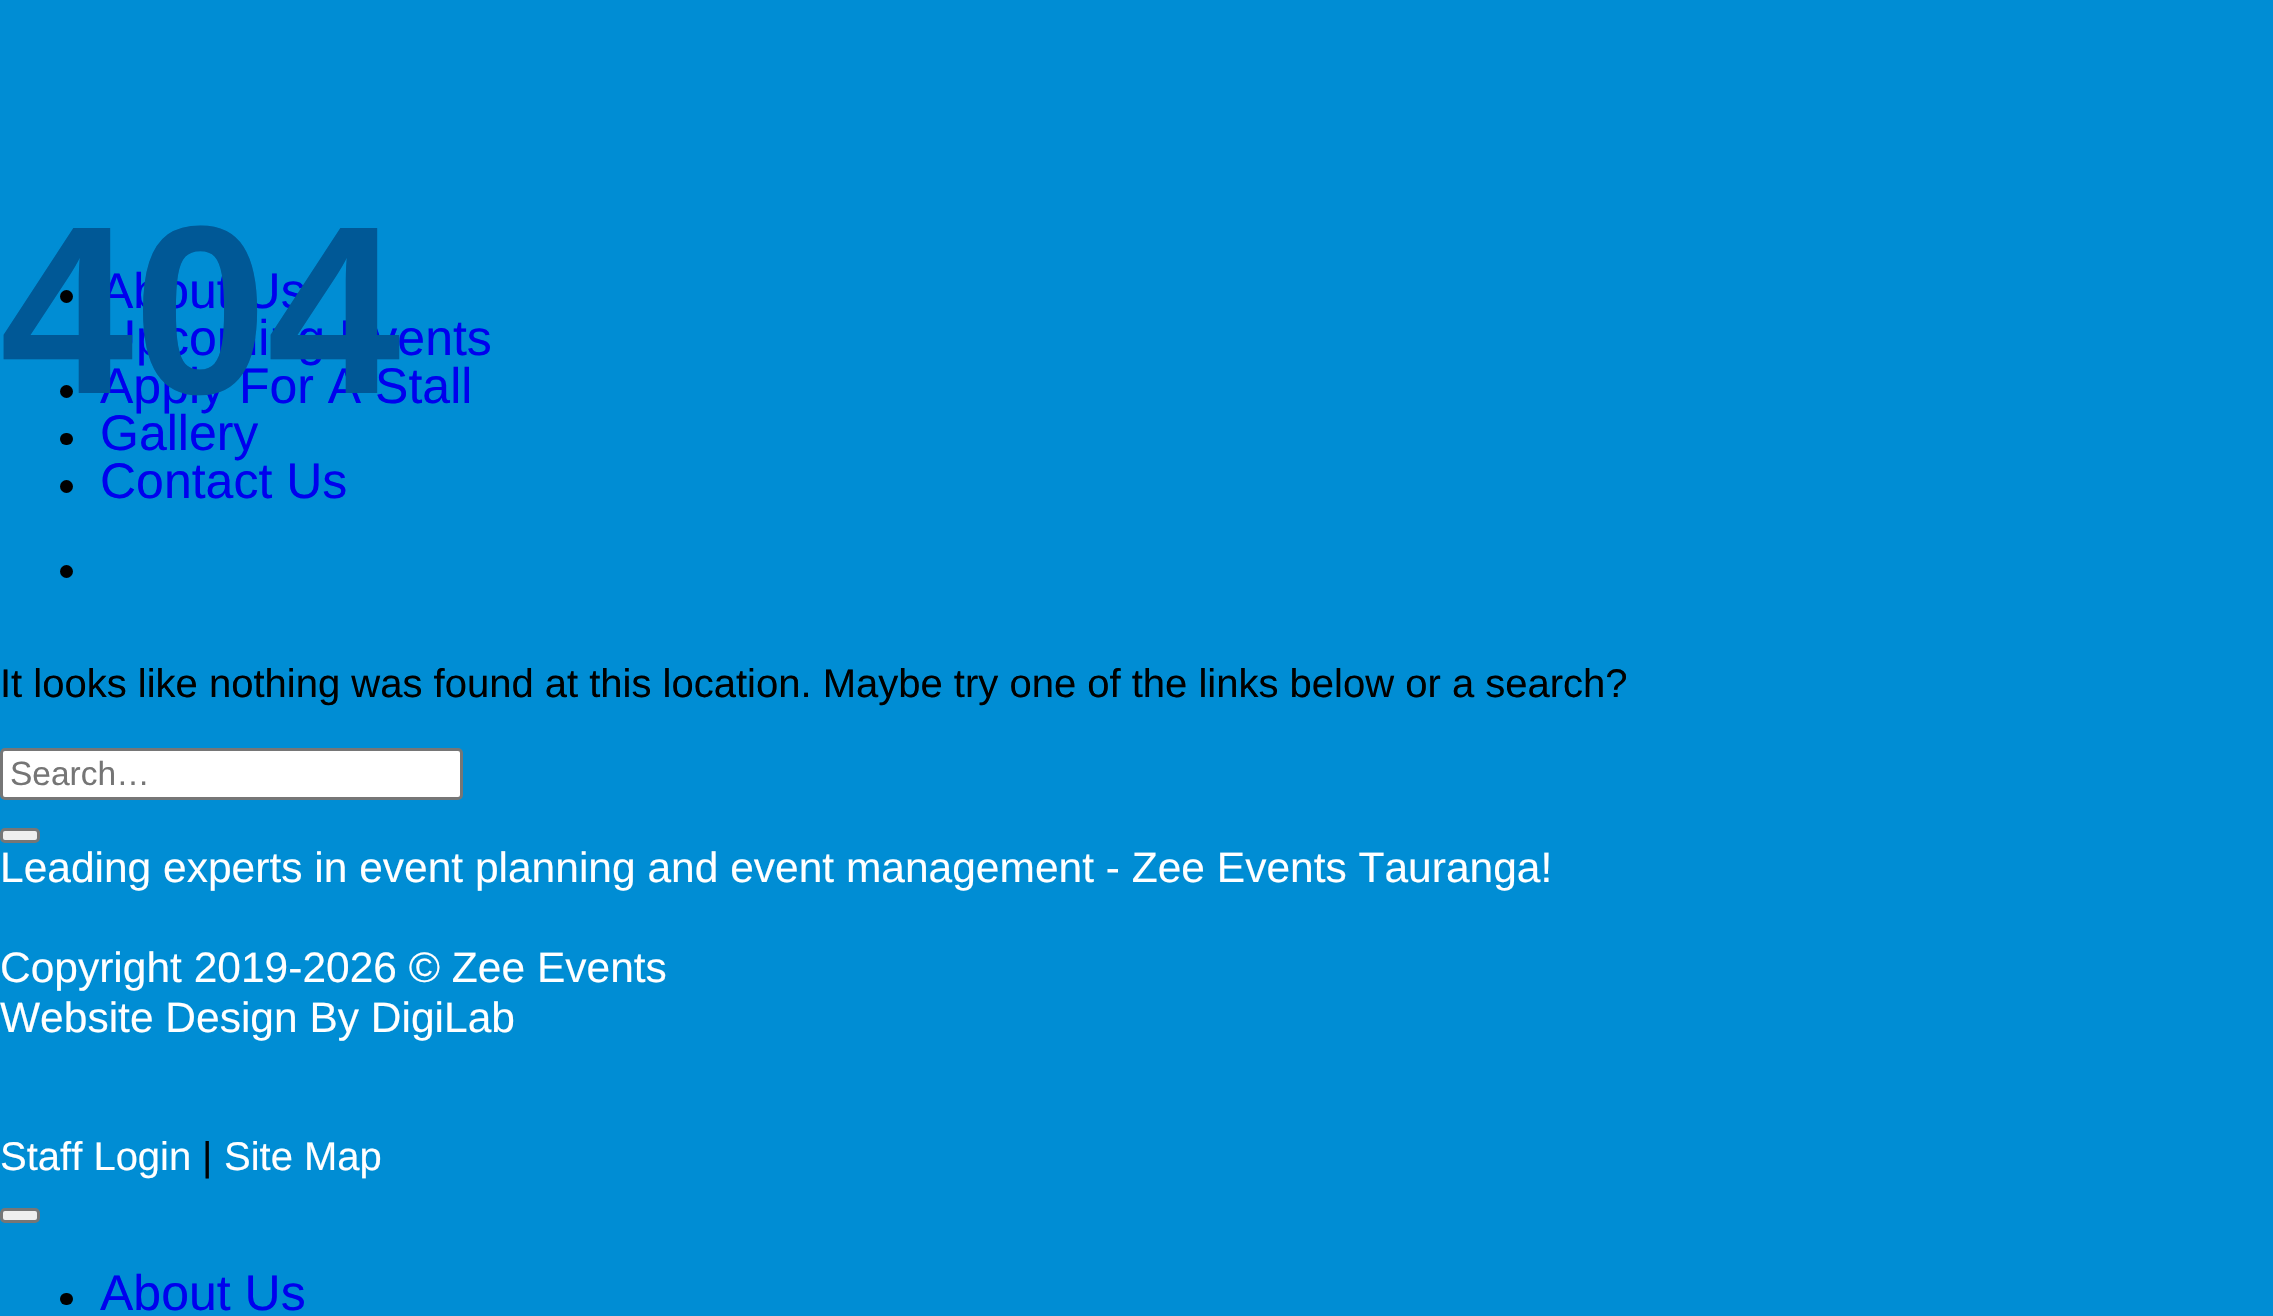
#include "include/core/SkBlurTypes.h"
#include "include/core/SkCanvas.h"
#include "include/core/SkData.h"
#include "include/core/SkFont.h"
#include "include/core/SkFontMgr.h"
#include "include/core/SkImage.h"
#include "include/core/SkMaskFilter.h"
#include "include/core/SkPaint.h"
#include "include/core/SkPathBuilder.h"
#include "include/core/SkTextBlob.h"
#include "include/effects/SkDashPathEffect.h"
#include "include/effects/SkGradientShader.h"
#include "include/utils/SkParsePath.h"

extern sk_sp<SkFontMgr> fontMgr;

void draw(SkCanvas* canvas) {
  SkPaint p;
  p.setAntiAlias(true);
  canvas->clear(SkColorSetRGB(0, 141, 212));
  p.setColor(SK_ColorWHITE);
  canvas->drawRoundRect(SkRect::MakeLTRB(1.5f, 749.5f, 461.5f, 798.5f), 3.5f, 3.5f, p);
  p.setStyle(SkPaint::kStroke_Style);
  p.setStrokeWidth(3);
  p.setColor(SkColorSetRGB(118, 118, 118));
  canvas->drawRoundRect(SkRect::MakeLTRB(1.5f, 749.5f, 461.5f, 798.5f), 3.5f, 3.5f, p);
  p.setStyle(SkPaint::kFill_Style);
  p.setColor(SkColorSetRGB(239, 239, 239));
  canvas->drawRoundRect(SkRect::MakeLTRB(1.5f, 829.5f, 38.5f, 841.5f), 3.5f, 3.5f, p);
  p.setStyle(SkPaint::kStroke_Style);
  p.setColor(SkColorSetRGB(118, 118, 118));
  canvas->drawRoundRect(SkRect::MakeLTRB(1.5f, 829.5f, 38.5f, 841.5f), 3.5f, 3.5f, p);
  p.setStyle(SkPaint::kFill_Style);
  p.setColor(SK_ColorBLACK);
  canvas->drawCircle(66.5f, 296.5f, 6.5f, p);
  canvas->drawRoundRect(SkRect::MakeLTRB(60, 338, 73, 350), 6, 6, p);
  canvas->drawCircle(66.5f, 391.5f, 6.5f, p);
  canvas->drawRoundRect(SkRect::MakeLTRB(60, 433, 73, 445), 6, 6, p);
  canvas->drawCircle(66.5f, 486.5f, 6.5f, p);
  canvas->drawCircle(66.5f, 571.5f, 6.5f, p);
  p.setColor(SkColorSetRGB(239, 239, 239));
  canvas->drawRoundRect(SkRect::MakeLTRB(1.5f, 1209.5f, 38.5f, 1221.5f), 3.5f, 3.5f, p);
  p.setStyle(SkPaint::kStroke_Style);
  p.setColor(SkColorSetRGB(118, 118, 118));
  canvas->drawRoundRect(SkRect::MakeLTRB(1.5f, 1209.5f, 38.5f, 1221.5f), 3.5f, 3.5f, p);
  p.setStyle(SkPaint::kFill_Style);
  p.setColor(SK_ColorBLACK);
  canvas->drawRoundRect(SkRect::MakeLTRB(60, 1293, 73, 1305), 6, 6, p);
  SkFont font1(fontMgr->matchFamilyStyle("Liberation Sans", SkFontStyle::Normal()), 40);
  font1.setSubpixel(true);
  canvas->drawString("It looks like nothing was found at this location. Maybe try one of the links below or a search?", 0, 697, font1, p);
  SkFont font2(fontMgr->matchFamilyStyle("Liberation Sans", SkFontStyle::Normal()), 33.5f);
  font2.setSubpixel(true);
  p.setColor(SkColorSetRGB(117, 117, 117));
  canvas->drawString("Search…", 10, 785, font2, p);
  SkFont font3(fontMgr->matchFamilyStyle("Liberation Sans", SkFontStyle::Normal()), 50);
  font3.setSubpixel(true);
  p.setColor(SkColorSetRGB(0, 0, 238));
  canvas->drawString("About Us", 100, 308, font3, p);
  canvas->drawString("Upcoming Events", 100, 355, font3, p);
  canvas->drawString("Apply For A Stall", 100, 403, font3, p);
  SkFont font4(fontMgr->matchFamilyStyle("Liberation Sans", SkFontStyle::Bold()), 240);
  font4.setSubpixel(true);
  p.setColor(SkColorSetRGB(0, 88, 150));
  canvas->drawString("404", 0, 393, font4, p);
  p.setColor(SkColorSetRGB(0, 0, 238));
  canvas->drawString("Gallery", 100, 450, font3, p);
  canvas->drawString("Contact Us", 100, 498, font3, p);
  SkFont font5(fontMgr->matchFamilyStyle("Liberation Sans", SkFontStyle::Normal()), 42.5f);
  font5.setSubpixel(true);
  p.setColor(SK_ColorWHITE);
  canvas->drawString("Leading experts in event planning and event management - Zee Events Tauranga!", 0, 882, font5, p);
  canvas->drawString("Copyright 2019-2026 © Zee Events", 0, 982, font5, p);
  canvas->drawString("Website Design By DigiLab", 0, 1032, font5, p);
  canvas->drawString("Staff Login", 0, 1170, font1, p);
  p.setColor(SK_ColorBLACK);
  canvas->drawString("|", 202, 1170, font1, p);
  p.setColor(SK_ColorWHITE);
  canvas->drawString("Site Map", 224, 1170, font1, p);
  p.setColor(SkColorSetRGB(0, 0, 238));
  canvas->drawString("About Us", 100, 1310, font3, p);
}
